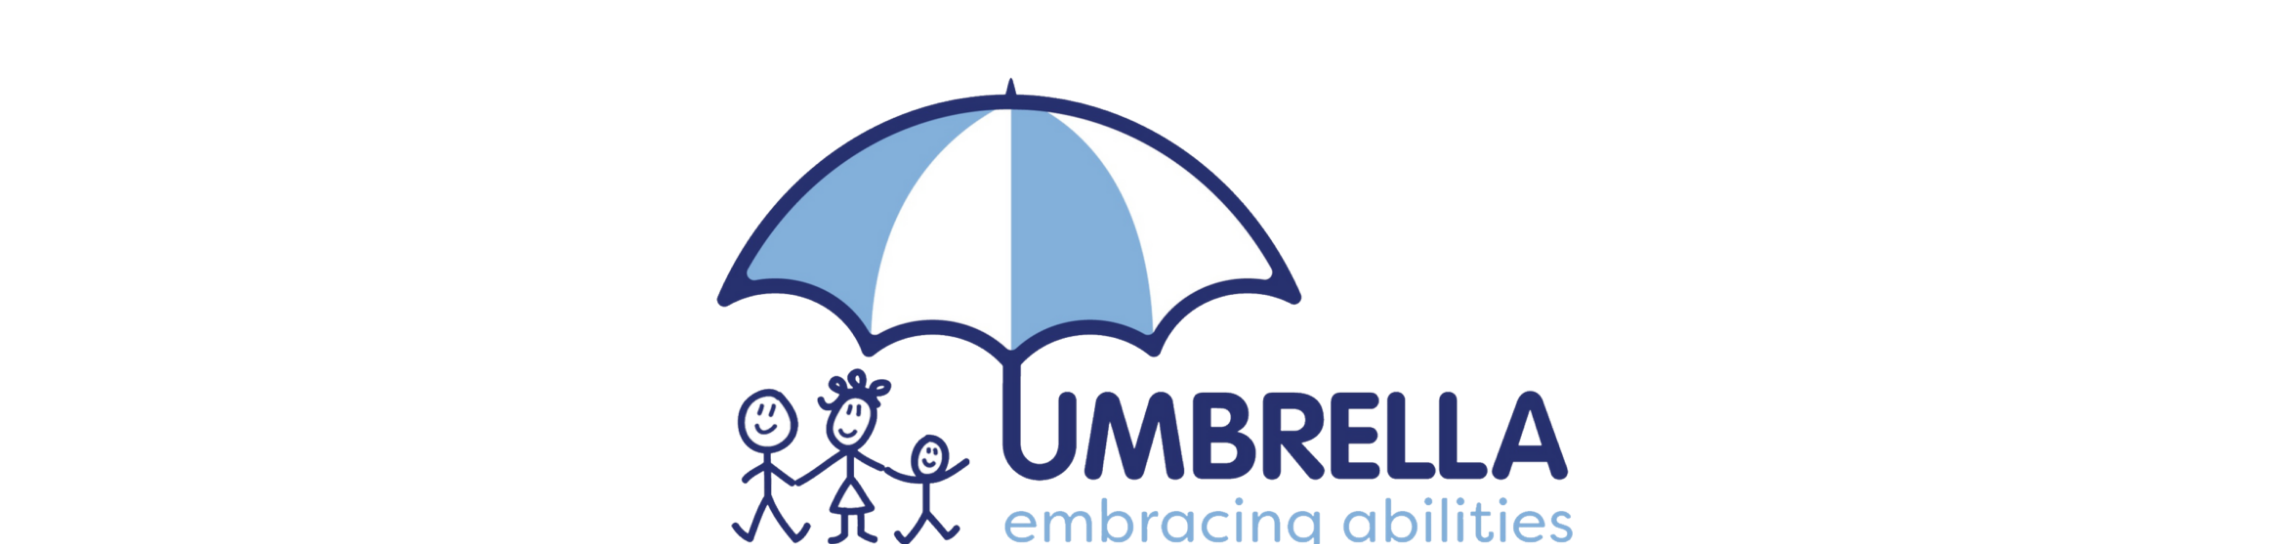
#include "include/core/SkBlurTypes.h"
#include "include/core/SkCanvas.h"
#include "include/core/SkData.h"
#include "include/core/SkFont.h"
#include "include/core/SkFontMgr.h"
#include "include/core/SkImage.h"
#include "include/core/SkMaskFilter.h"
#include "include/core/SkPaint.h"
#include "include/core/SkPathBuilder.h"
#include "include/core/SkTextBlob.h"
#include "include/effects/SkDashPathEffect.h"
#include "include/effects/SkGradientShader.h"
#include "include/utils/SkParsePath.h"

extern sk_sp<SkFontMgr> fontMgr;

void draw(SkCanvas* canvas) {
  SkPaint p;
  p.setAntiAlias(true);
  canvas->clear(SK_ColorWHITE);
  canvas->drawImageRect(SkImages::DeferredFromEncodedData(SkData::MakeFromFileName("images/1.png")), SkRect::MakeLTRB(716, 77, 1573, 544), SkSamplingOptions());
}
